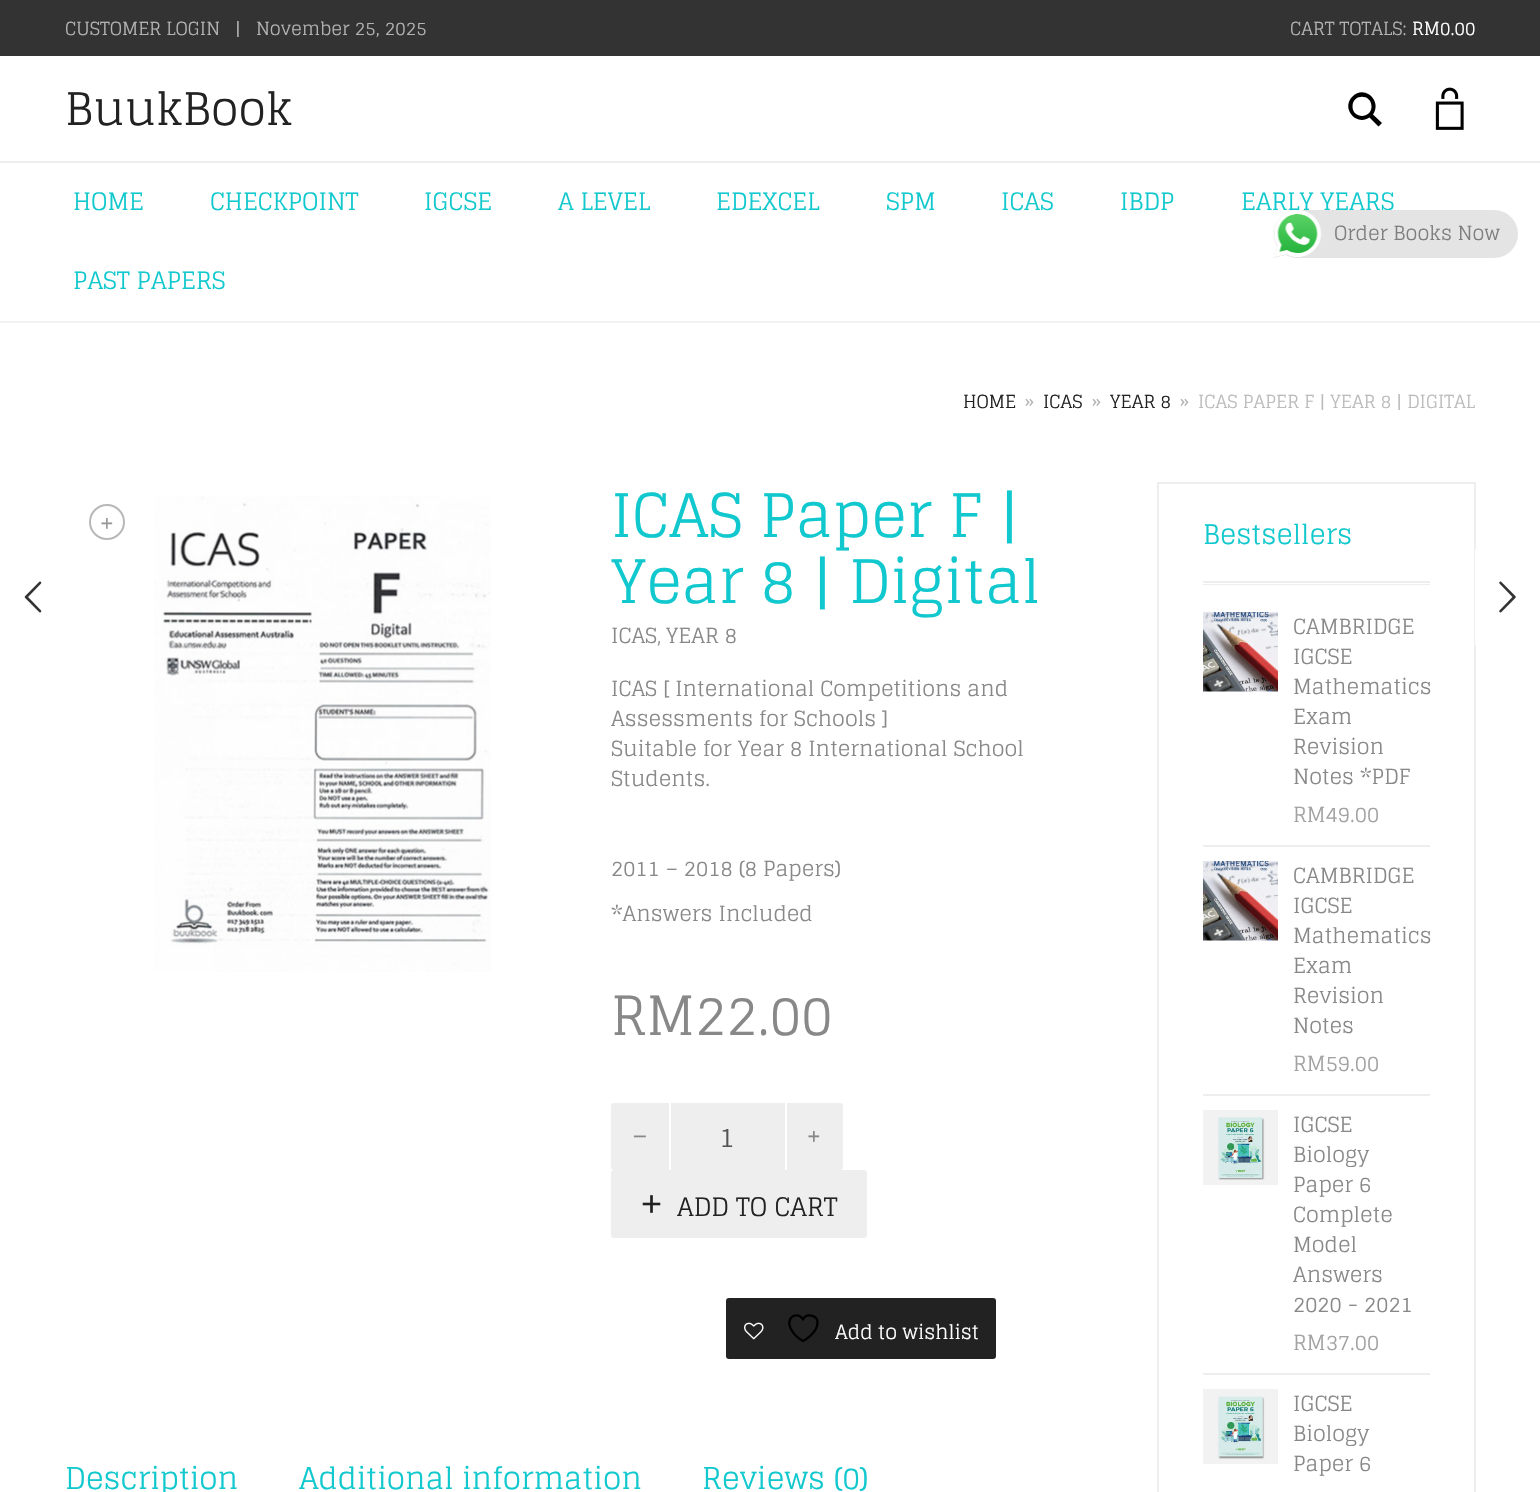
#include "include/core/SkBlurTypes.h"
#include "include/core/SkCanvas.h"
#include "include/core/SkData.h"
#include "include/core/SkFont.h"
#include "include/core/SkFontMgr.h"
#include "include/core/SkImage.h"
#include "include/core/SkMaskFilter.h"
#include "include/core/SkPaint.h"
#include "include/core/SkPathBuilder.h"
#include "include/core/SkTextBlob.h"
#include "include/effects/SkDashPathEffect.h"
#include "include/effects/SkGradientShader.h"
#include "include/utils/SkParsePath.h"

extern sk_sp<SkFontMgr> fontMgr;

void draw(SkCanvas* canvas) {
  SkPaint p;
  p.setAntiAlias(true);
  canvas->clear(SK_ColorWHITE);
  p.setColor(SkColorSetRGB(242, 242, 242));
  canvas->drawPath(SkPathBuilder().moveTo(0, 321).lineTo(0, 323).lineTo(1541, 323).lineTo(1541, 2).lineTo(1540, 2).lineTo(1540, 321).close().detach(), p);
  p.setColor(SkColorSetRGB(51, 51, 51));
  canvas->drawRect(SkRect::MakeLTRB(0, 0, 1540, 56), p);
  p.setColor(SK_ColorBLACK);
  canvas->drawPath(SkPathBuilder().moveTo(1382, 123).lineTo(1373, 114.5f).cubicTo(1382.5f, 101, 1364.5f, 84.5f, 1352.5f, 96.5f).cubicTo(1340.5f, 108.5f, 1356.5f, 126.5f, 1369.5f, 117.5f).lineTo(1378.5f, 126.5f).close().moveTo(1352.5f, 106.5f).cubicTo(1352.5f, 93.5f, 1371.5f, 93.5f, 1371.5f, 106.5f).cubicTo(1371.5f, 119, 1352.5f, 119, 1352.5f, 106.5f).close().detach(), p);
  canvas->drawImageRect(SkImages::DeferredFromEncodedData(SkData::MakeFromFileName("images/1.png")), SkRect::MakeLTRB(1435, 87, 1464, 130), SkSamplingOptions());
  p.setColor(SkColorSetRGB(238, 238, 238));
  canvas->drawRect(SkRect::MakeLTRB(0, 161, 1540, 163), p);
  p.setStyle(SkPaint::kStroke_Style);
  p.setStrokeWidth(2);
  p.setColor(SkColorSetRGB(184, 184, 184));
  canvas->drawCircle(107, 522, 17, p);
  canvas->drawImageRect(SkImages::DeferredFromEncodedData(SkData::MakeFromFileName("images/3.png")), SkRect::MakeLTRB(154, 496, 491, 972), SkSamplingOptions());
  p.setStyle(SkPaint::kFill_Style);
  p.setColor(SkColorSetRGB(238, 238, 238));
  canvas->drawRoundRect(SkRect::MakeLTRB(611, 1103, 843, 1170), 3, 3, p);
  p.setColor(SK_ColorWHITE);
  canvas->drawRect(SkRect::MakeLTRB(785, 1103, 787, 1170), p);
  canvas->drawRect(SkRect::MakeLTRB(669, 1103, 671, 1170), p);
  p.setColor(SkColorSetRGB(238, 238, 238));
  canvas->drawRoundRect(SkRect::MakeLTRB(611, 1170, 867, 1238), 3, 3, p);
  p.setColor(SkColorSetRGB(34, 34, 34));
  canvas->drawRoundRect(SkRect::MakeLTRB(726, 1298, 996, 1359), 3, 3, p);
  canvas->drawImageRect(SkImages::DeferredFromEncodedData(SkData::MakeFromFileName("images/4.png")), SkRect::MakeLTRB(744, 1322, 764, 1340), SkSamplingOptions());
  p.setStyle(SkPaint::kStroke_Style);
  p.setStrokeWidth(2.3f);
  p.setStrokeCap(SkPaint::kRound_Cap);
  p.setStrokeJoin(SkPaint::kRound_Join);
  p.setColor(SK_ColorBLACK);
  canvas->drawPath(SkPathBuilder().moveTo(817.5f, 1322.5f).cubicTo(817.5f, 1314.5f, 806, 1313, 803, 1319.5f).cubicTo(799.5f, 1311, 783.5f, 1316, 791.5f, 1330).cubicTo(794, 1334.5f, 798.5f, 1338.5f, 803, 1341).cubicTo(803, 1341, 817.5f, 1333.5f, 817.5f, 1322.5f).close().detach(), p);
  p.setStrokeWidth(2);
  p.setStrokeCap(SkPaint::kButt_Cap);
  p.setStrokeJoin(SkPaint::kMiter_Join);
  p.setColor(SkColorSetRGB(238, 238, 238));
  canvas->drawRect(SkRect::MakeLTRB(1158, 483, 1475, 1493), p);
  p.setStyle(SkPaint::kFill_Style);
  canvas->drawPath(SkPathBuilder().moveTo(1203, 582).lineTo(1203, 585).lineTo(1430, 585).lineTo(1430, 524).lineTo(1430, 582).close().detach(), p);
  p.setColor(SK_ColorWHITE);
  canvas->drawPath(SkPathBuilder().moveTo(1203, 582).lineTo(1203, 584).lineTo(1430, 584).lineTo(1430, 522).lineTo(1430, 582).close().detach(), p);
  p.setColor(SkColorSetRGB(238, 238, 238));
  canvas->drawRect(SkRect::MakeLTRB(1203, 581, 1430, 583), p);
  canvas->drawRect(SkRect::MakeLTRB(1203, 845, 1430, 847), p);
  canvas->drawImageRect(SkImages::DeferredFromEncodedData(SkData::MakeFromFileName("images/5.png")), SkRect::MakeLTRB(1203, 612, 1278, 692), SkSamplingOptions());
  canvas->drawRect(SkRect::MakeLTRB(1203, 1094, 1430, 1096), p);
  canvas->drawImageRect(SkImages::DeferredFromEncodedData(SkData::MakeFromFileName("images/5.png")), SkRect::MakeLTRB(1203, 861, 1278, 941), SkSamplingOptions());
  canvas->drawRect(SkRect::MakeLTRB(1203, 1373, 1430, 1375), p);
  canvas->drawImageRect(SkImages::DeferredFromEncodedData(SkData::MakeFromFileName("images/6.png")), SkRect::MakeLTRB(1203, 1110, 1278, 1185), SkSamplingOptions());
  canvas->drawImageRect(SkImages::DeferredFromEncodedData(SkData::MakeFromFileName("images/7.png")), SkRect::MakeLTRB(1203, 1389, 1278, 1464), SkSamplingOptions());
  canvas->drawImageRect(SkImages::DeferredFromEncodedData(SkData::MakeFromFileName("images/8.png")), SkRect::MakeLTRB(24, 581, 42, 613), SkSamplingOptions());
  p.setColor(SK_ColorWHITE);
  canvas->drawRect(SkRect::MakeLTRB(1475, 549, 1476, 645), p);
  canvas->drawImageRect(SkImages::DeferredFromEncodedData(SkData::MakeFromFileName("images/9.png")), SkRect::MakeLTRB(1499, 581, 1516, 613), SkSamplingOptions());
  SkFont font1(fontMgr->matchFamilyStyle("Glegoo", SkFontStyle::Normal()), 18);
  font1.setSubpixel(true);
  p.setColor(SkColorSetRGB(179, 179, 179));
  canvas->drawString("CUSTOMER LOGIN", 65, 35, font1, p);
  canvas->drawString("|", 235, 35, font1, p);
  canvas->drawString("November 25, 2025", 256, 35, font1, p);
  canvas->drawString("CART TOTALS:", 1290, 35, font1, p);
  p.setColor(SK_ColorWHITE);
  canvas->drawString("RM0.00", 1412, 35, font1, p);
  SkFont font2(fontMgr->matchFamilyStyle("Glegoo", SkFontStyle::Normal()), 45);
  font2.setSubpixel(true);
  p.setColor(SkColorSetRGB(34, 34, 34));
  canvas->drawString("BuukBook", 65, 125, font2, p);
  SkFont font3(fontMgr->matchFamilyStyle("Glegoo", SkFontStyle::Normal()), 24);
  font3.setSubpixel(true);
  p.setColor(SkColorSetRGB(16, 200, 205));
  canvas->drawString("HOME", 73, 210, font3, p);
  canvas->drawString("CHECKPOINT", 210, 210, font3, p);
  canvas->drawString("IGCSE", 424, 210, font3, p);
  canvas->drawString("A LEVEL", 558, 210, font3, p);
  canvas->drawString("EDEXCEL", 716, 210, font3, p);
  canvas->drawString("SPM", 886, 210, font3, p);
  canvas->drawString("ICAS", 1001, 210, font3, p);
  canvas->drawString("IBDP", 1120, 210, font3, p);
  canvas->drawString("EARLY YEARS", 1241, 210, font3, p);
  canvas->drawString("PAST PAPERS", 73, 289, font3, p);
  p.setColor(SkColorSetRGB(228, 228, 228));
  canvas->drawRoundRect(SkRect::MakeLTRB(1274, 210, 1518, 258), 24, 24, p);
  canvas->drawImageRect(SkImages::DeferredFromEncodedData(SkData::MakeFromFileName("images/2.png")), SkRect::MakeLTRB(1273, 210, 1322, 258), SkSamplingOptions());
  SkFont font4(fontMgr->matchFamilyStyle("Glegoo", SkFontStyle::Normal()), 19.5f);
  font4.setSubpixel(true);
  p.setColor(SkColorSetRGB(127, 125, 125));
  canvas->drawString("Order Books Now", 1334, 240, font4, p);
  p.setColor(SkColorSetRGB(34, 34, 34));
  canvas->drawString("HOME", 963, 408, font1, p);
  p.setColor(SkColorSetRGB(179, 179, 179));
  canvas->drawString("»", 1025, 408, font1, p);
  p.setColor(SkColorSetRGB(34, 34, 34));
  canvas->drawString("ICAS", 1043, 408, font1, p);
  p.setColor(SkColorSetRGB(179, 179, 179));
  canvas->drawString("»", 1092, 408, font1, p);
  p.setColor(SkColorSetRGB(34, 34, 34));
  canvas->drawString("YEAR 8", 1110, 408, font1, p);
  p.setColor(SkColorSetRGB(179, 179, 179));
  canvas->drawString("»", 1180, 408, font1, p);
  p.setColor(SkColorSetRGB(187, 187, 187));
  canvas->drawString("ICAS PAPER F | YEAR 8 | DIGITAL", 1198, 408, font1, p);
  SkFont font5(fontMgr->matchFamilyStyle("Glegoo", SkFontStyle::Normal()), 27);
  font5.setSubpixel(true);
  p.setColor(SkColorSetRGB(153, 153, 153));
  canvas->drawString("+", 99, 532, font5, p);
  SkFont font6(fontMgr->matchFamilyStyle("Glegoo", SkFontStyle::Normal()), 60);
  font6.setSubpixel(true);
  p.setColor(SkColorSetRGB(16, 200, 205));
  canvas->drawString("ICAS Paper F |", 611, 537, font6, p);
  canvas->drawString("Year 8 | Digital", 611, 603, font6, p);
  SkFont font7(fontMgr->matchFamilyStyle("Glegoo", SkFontStyle::Normal()), 21);
  font7.setSubpixel(true);
  p.setColor(SkColorSetRGB(136, 136, 136));
  canvas->drawString("ICAS", 611, 643, font7, p);
  SkFont font8(fontMgr->matchFamilyStyle("Roboto Condensed", SkFontStyle(300, SkFontStyle::kNormal_Width, SkFontStyle::kUpright_Slant)), 21);
  font8.setSubpixel(true);
  canvas->drawString(",", 657, 643, font8, p);
  canvas->drawString("YEAR 8", 666, 643, font7, p);
  canvas->drawString("ICAS [ International Competitions and", 611, 696, font7, p);
  canvas->drawString("Assessments for Schools ]", 611, 726, font7, p);
  canvas->drawString("Suitable for Year 8 International School", 611, 756, font7, p);
  canvas->drawString("Students.", 611, 786, font7, p);
  canvas->drawString("2011 – 2018 (8 Papers)", 611, 876, font7, p);
  canvas->drawString("*Answers Included", 611, 921, font7, p);
  SkFont font9(fontMgr->matchFamilyStyle("Glegoo", SkFontStyle::Normal()), 54);
  font9.setSubpixel(true);
  canvas->drawString("RM22.00", 611, 1035, font9, p);
  canvas->drawString("–", 632, 1145, font5, p);
  p.setColor(SkColorSetRGB(85, 85, 85));
  canvas->drawString("1", 719, 1147, font5, p);
  p.setColor(SkColorSetRGB(136, 136, 136));
  canvas->drawString("+", 806, 1145, font5, p);
  SkFont font10(fontMgr->matchFamilyStyle("Liberation Sans", SkFontStyle::Normal()), 36);
  font10.setSubpixel(true);
  p.setColor(SkColorSetRGB(34, 34, 34));
  canvas->drawString("+", 641, 1216, font10, p);
  SkFont font11(fontMgr->matchFamilyStyle("Glegoo", SkFontStyle::Normal()), 25.5f);
  font11.setSubpixel(true);
  canvas->drawString("ADD TO CART", 677, 1216, font11, p);
  p.setColor(SK_ColorWHITE);
  canvas->drawString("Add to wishlist", 835, 1339, font4, p);
  SkFont font12(fontMgr->matchFamilyStyle("Glegoo", SkFontStyle::Normal()), 30);
  font12.setSubpixel(true);
  p.setColor(SkColorSetRGB(16, 200, 205));
  canvas->drawString("Description", 65, 1489, font12, p);
  canvas->drawString("Additional information", 299, 1489, font12, p);
  canvas->drawString("Reviews (0)", 702, 1489, font12, p);
  canvas->drawString("Bestsellers", 1203, 544, font5, p);
  p.setColor(SkColorSetRGB(136, 136, 136));
  canvas->drawString("CAMBRIDGE", 1293, 634, font7, p);
  canvas->drawString("IGCSE", 1293, 664, font7, p);
  canvas->drawString("Mathematics", 1293, 694, font7, p);
  canvas->drawString("Exam", 1293, 724, font7, p);
  canvas->drawString("Revision", 1293, 754, font7, p);
  canvas->drawString("Notes *PDF", 1293, 784, font7, p);
  p.setColor(SkColorSetRGB(162, 162, 162));
  canvas->drawString("RM49.00", 1293, 822, font7, p);
  p.setColor(SkColorSetRGB(136, 136, 136));
  canvas->drawString("CAMBRIDGE", 1293, 883, font7, p);
  canvas->drawString("IGCSE", 1293, 913, font7, p);
  canvas->drawString("Mathematics", 1293, 943, font7, p);
  canvas->drawString("Exam", 1293, 973, font7, p);
  canvas->drawString("Revision", 1293, 1003, font7, p);
  canvas->drawString("Notes", 1293, 1033, font7, p);
  p.setColor(SkColorSetRGB(162, 162, 162));
  canvas->drawString("RM59.00", 1293, 1071, font7, p);
  p.setColor(SkColorSetRGB(136, 136, 136));
  canvas->drawString("IGCSE", 1293, 1132, font7, p);
  canvas->drawString("Biology", 1293, 1162, font7, p);
  canvas->drawString("Paper 6", 1293, 1192, font7, p);
  canvas->drawString("Complete", 1293, 1222, font7, p);
  canvas->drawString("Model", 1293, 1252, font7, p);
  canvas->drawString("Answers", 1293, 1282, font7, p);
  canvas->drawString("2020 - 2021", 1293, 1312, font7, p);
  p.setColor(SkColorSetRGB(162, 162, 162));
  canvas->drawString("RM37.00", 1293, 1350, font7, p);
  p.setColor(SkColorSetRGB(136, 136, 136));
  canvas->drawString("IGCSE", 1293, 1411, font7, p);
  canvas->drawString("Biology", 1293, 1441, font7, p);
  canvas->drawString("Paper 6", 1293, 1471, font7, p);
}
